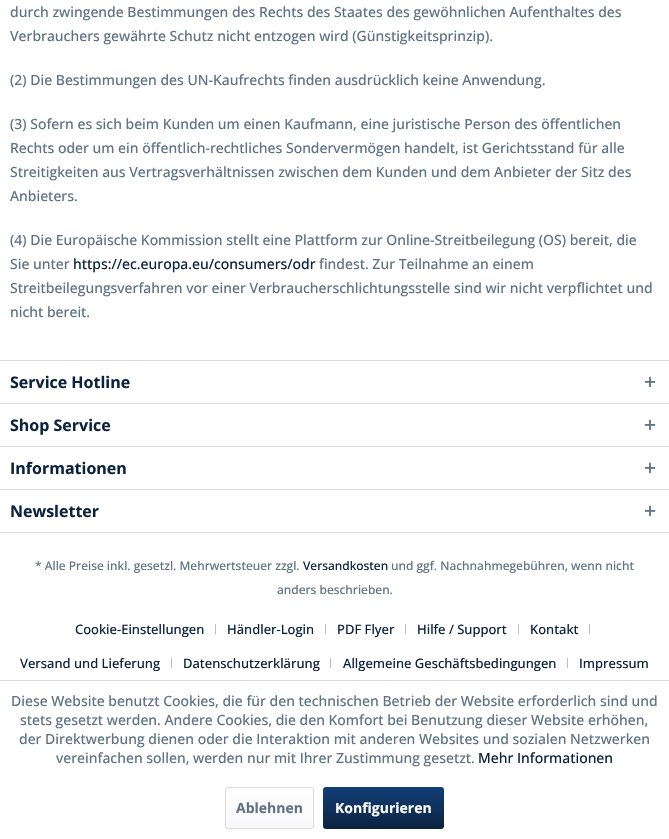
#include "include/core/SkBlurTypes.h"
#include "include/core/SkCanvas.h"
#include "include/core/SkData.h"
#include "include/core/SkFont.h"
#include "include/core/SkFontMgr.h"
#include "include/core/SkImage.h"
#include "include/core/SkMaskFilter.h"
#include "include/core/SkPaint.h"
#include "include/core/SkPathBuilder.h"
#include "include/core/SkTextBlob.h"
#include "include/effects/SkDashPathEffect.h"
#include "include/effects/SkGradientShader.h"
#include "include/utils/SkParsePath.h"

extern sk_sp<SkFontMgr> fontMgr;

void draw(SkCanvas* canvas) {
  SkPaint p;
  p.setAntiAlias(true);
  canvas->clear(SK_ColorWHITE);
  p.setColor(SkColorSetRGB(218, 218, 229));
  canvas->drawRect(SkRect::MakeLTRB(0, 360, 669, 361), p);
  canvas->drawImageRect(SkImages::DeferredFromEncodedData(SkData::MakeFromFileName("images/1.png")), SkRect::MakeLTRB(644, 376, 656, 388), SkSamplingOptions());
  canvas->drawRect(SkRect::MakeLTRB(0, 403, 669, 404), p);
  canvas->drawImageRect(SkImages::DeferredFromEncodedData(SkData::MakeFromFileName("images/1.png")), SkRect::MakeLTRB(644, 419, 656, 431), SkSamplingOptions());
  canvas->drawRect(SkRect::MakeLTRB(0, 446, 669, 447), p);
  canvas->drawImageRect(SkImages::DeferredFromEncodedData(SkData::MakeFromFileName("images/1.png")), SkRect::MakeLTRB(644, 462, 656, 474), SkSamplingOptions());
  canvas->drawRect(SkRect::MakeLTRB(0, 489, 669, 490), p);
  canvas->drawRect(SkRect::MakeLTRB(0, 532, 669, 533), p);
  canvas->drawImageRect(SkImages::DeferredFromEncodedData(SkData::MakeFromFileName("images/1.png")), SkRect::MakeLTRB(644, 505, 656, 517), SkSamplingOptions());
  p.setColor(SkColorSetRGB(188, 188, 208));
  canvas->drawRect(SkRect::MakeLTRB(215, 624, 216, 634), p);
  canvas->drawRect(SkRect::MakeLTRB(325, 624, 326, 634), p);
  canvas->drawRect(SkRect::MakeLTRB(405, 624, 406, 634), p);
  canvas->drawRect(SkRect::MakeLTRB(518, 624, 519, 634), p);
  canvas->drawRect(SkRect::MakeLTRB(589, 624, 590, 634), p);
  canvas->drawRect(SkRect::MakeLTRB(171, 658, 172, 668), p);
  canvas->drawRect(SkRect::MakeLTRB(330, 658, 331, 668), p);
  canvas->drawRect(SkRect::MakeLTRB(567, 658, 568, 668), p);
  p.setColor(SkColorSetRGB(218, 218, 229));
  canvas->drawRect(SkRect::MakeLTRB(0, 680, 669, 681), p);
  {
    const SkColor colors[] = {SK_ColorWHITE, SkColorSetRGB(248, 248, 250)};
    const float stops[] = {0, 1};
    const SkPoint ends[] = {{270, 788}, {270, 828}};
    p.setShader(SkGradientShader::MakeLinear(ends, colors, stops, 2, SkTileMode::kClamp));
    p.setAlpha(255);
  }
  canvas->drawRoundRect(SkRect::MakeLTRB(226, 788, 313, 828), 2, 2, p);
  p.setStyle(SkPaint::kStroke_Style);
  p.setStrokeWidth(1);
  p.setShader(nullptr);
  p.setColor(SkColorSetRGB(218, 218, 229));
  canvas->drawRoundRect(SkRect::MakeLTRB(225.5f, 787.5f, 313.5f, 828.5f), 2.5f, 2.5f, p);
  p.setStyle(SkPaint::kFill_Style);
  {
    const SkColor colors[] = {SkColorSetRGB(18, 63, 119), SkColorSetRGB(12, 35, 64)};
    const float stops[] = {0, 1};
    const SkPoint ends[] = {{384, 787}, {384, 829}};
    p.setShader(SkGradientShader::MakeLinear(ends, colors, stops, 2, SkTileMode::kClamp));
    p.setAlpha(255);
  }
  canvas->drawRoundRect(SkRect::MakeLTRB(323, 787, 444, 829), 3, 3, p);
  SkFont font1(fontMgr->matchFamilyStyle("Open Sans", SkFontStyle(500, SkFontStyle::kNormal_Width, SkFontStyle::kUpright_Slant)), 14);
  font1.setSubpixel(true);
  p.setShader(nullptr);
  p.setColor(SkColorSetRGB(95, 114, 133));
  canvas->drawString("durch zwingende Bestimmungen des Rechts des Staates des gewöhnlichen Aufenthaltes des", 10, 17, font1, p);
  canvas->drawString("Verbrauchers gewährte Schutz nicht entzogen wird (Günstigkeitsprinzip).", 10, 41, font1, p);
  canvas->drawString("(2) Die Bestimmungen des UN-Kaufrechts finden ausdrücklich keine Anwendung.", 10, 85, font1, p);
  canvas->drawString("(3) Sofern es sich beim Kunden um einen Kaufmann, eine juristische Person des öffentlichen", 10, 129, font1, p);
  canvas->drawString("Rechts oder um ein öffentlich-rechtliches Sondervermögen handelt, ist Gerichtsstand für alle", 10, 153, font1, p);
  canvas->drawString("Streitigkeiten aus Vertragsverhältnissen zwischen dem Kunden und dem Anbieter der Sitz des", 10, 177, font1, p);
  canvas->drawString("Anbieters.", 10, 201, font1, p);
  canvas->drawString("(4) Die Europäische Kommission stellt eine Plattform zur Online-Streitbeilegung (OS) bereit, die", 10, 245, font1, p);
  canvas->drawString("Sie unter", 10, 269, font1, p);
  p.setColor(SkColorSetRGB(12, 35, 64));
  canvas->drawString("https://ec.europa.eu/consumers/odr", 73, 269, font1, p);
  p.setColor(SkColorSetRGB(95, 114, 133));
  canvas->drawString("findest. Zur Teilnahme an einem", 319, 269, font1, p);
  canvas->drawString("Streitbeilegungsverfahren vor einer Verbraucherschlichtungsstelle sind wir nicht verpflichtet und", 10, 293, font1, p);
  canvas->drawString("nicht bereit.", 10, 317, font1, p);
  SkFont font2(fontMgr->matchFamilyStyle("Open Sans", SkFontStyle::Bold()), 16);
  font2.setSubpixel(true);
  p.setColor(SkColorSetRGB(12, 35, 64));
  canvas->drawString("Service Hotline", 10, 388, font2, p);
  canvas->drawString("Shop Service", 10, 431, font2, p);
  canvas->drawString("Informationen", 10, 474, font2, p);
  canvas->drawString("Newsletter", 10, 517, font2, p);
  SkFont font3(fontMgr->matchFamilyStyle("Open Sans", SkFontStyle(500, SkFontStyle::kNormal_Width, SkFontStyle::kUpright_Slant)), 12);
  font3.setSubpixel(true);
  p.setColor(SkColorSetRGB(95, 114, 133));
  canvas->drawString("* Alle Preise inkl. gesetzl. Mehrwertsteuer zzgl.", 35, 570, font3, p);
  p.setColor(SkColorSetRGB(12, 35, 64));
  canvas->drawString("Versandkosten", 303, 570, font3, p);
  p.setColor(SkColorSetRGB(95, 114, 133));
  canvas->drawString("und ggf. Nachnahmegebühren, wenn nicht", 391, 570, font3, p);
  canvas->drawString("anders beschrieben.", 277, 594, font3, p);
  SkFont font4(fontMgr->matchFamilyStyle("Open Sans", SkFontStyle(500, SkFontStyle::kNormal_Width, SkFontStyle::kUpright_Slant)), 13);
  font4.setSubpixel(true);
  p.setColor(SkColorSetRGB(12, 35, 64));
  canvas->drawString("Cookie-Einstellungen", 75, 634, font4, p);
  canvas->drawString("Händler-Login", 227, 634, font4, p);
  canvas->drawString("PDF Flyer", 337, 634, font4, p);
  canvas->drawString("Hilfe / Support", 417, 634, font4, p);
  canvas->drawString("Kontakt", 530, 634, font4, p);
  canvas->drawString("Versand und Lieferung", 20, 668, font4, p);
  canvas->drawString("Datenschutzerklärung", 183, 668, font4, p);
  canvas->drawString("Allgemeine Geschäftsbedingungen", 343, 668, font4, p);
  canvas->drawString("Impressum", 579, 668, font4, p);
  p.setColor(SkColorSetRGB(95, 114, 133));
  canvas->drawString("Diese Website benutzt Cookies, die für den technischen Betrieb der Website erforderlich sind und", 11, 706, font1, p);
  canvas->drawString("stets gesetzt werden. Andere Cookies, die den Komfort bei Benutzung dieser Website erhöhen,", 20, 725, font1, p);
  canvas->drawString("der Direktwerbung dienen oder die Interaktion mit anderen Websites und sozialen Netzwerken", 19, 744, font1, p);
  canvas->drawString("vereinfachen sollen, werden nur mit Ihrer Zustimmung gesetzt.", 56, 763, font1, p);
  p.setColor(SkColorSetRGB(12, 35, 64));
  canvas->drawString("Mehr Informationen", 478, 763, font1, p);
  SkFont font5(fontMgr->matchFamilyStyle("Open Sans", SkFontStyle::Bold()), 14);
  font5.setSubpixel(true);
  p.setColor(SkColorSetRGB(95, 114, 133));
  canvas->drawString("Ablehnen", 236, 813, font5, p);
  p.setColor(SK_ColorWHITE);
  canvas->drawString("Konfigurieren", 335, 813, font5, p);
}
